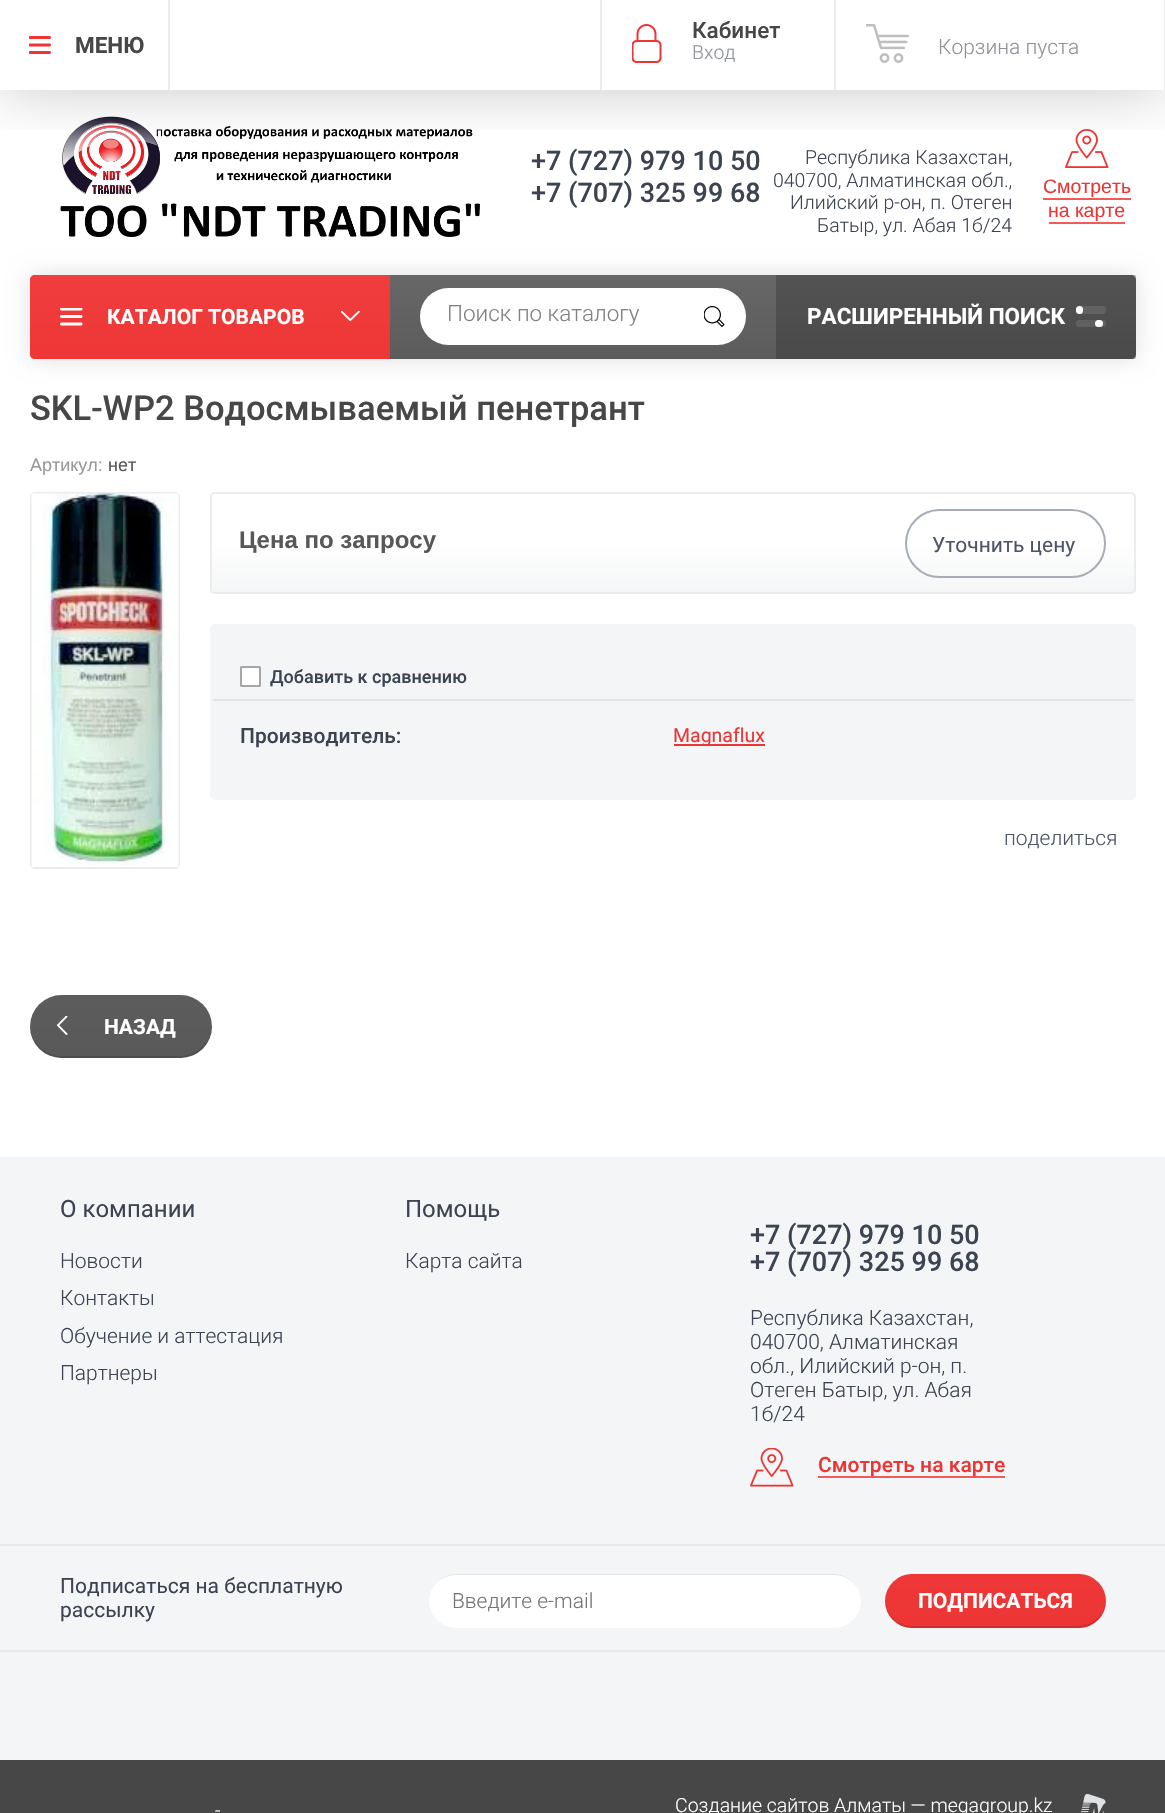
#include "include/core/SkBlurTypes.h"
#include "include/core/SkCanvas.h"
#include "include/core/SkData.h"
#include "include/core/SkFont.h"
#include "include/core/SkFontMgr.h"
#include "include/core/SkImage.h"
#include "include/core/SkMaskFilter.h"
#include "include/core/SkPaint.h"
#include "include/core/SkPathBuilder.h"
#include "include/core/SkTextBlob.h"
#include "include/effects/SkDashPathEffect.h"
#include "include/effects/SkGradientShader.h"
#include "include/utils/SkParsePath.h"

extern sk_sp<SkFontMgr> fontMgr;

void draw(SkCanvas* canvas) {
  SkPaint p;
  p.setAntiAlias(true);
  canvas->clear(SK_ColorWHITE);
  canvas->drawImageRect(SkImages::DeferredFromEncodedData(SkData::MakeFromFileName("images/4.png")), SkRect::MakeLTRB(60, 116, 480, 237), SkSamplingOptions());
  canvas->drawImageRect(SkImages::DeferredFromEncodedData(SkData::MakeFromFileName("images/5.png")), SkRect::MakeLTRB(1065, 129, 1109, 168), SkSamplingOptions());
  canvas->save();
  canvas->clipRect(SkRect::MakeLTRB(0, 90, 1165, 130));
  p.setColor(SkColorSetARGB(51, 0, 0, 0));
  p.setMaskFilter(SkMaskFilter::MakeBlur(kNormal_SkBlurStyle, 30));
  canvas->drawRect(SkRect::MakeLTRB(0, 2, 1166, 92), p);
  p.setMaskFilter(nullptr);
  canvas->restore();
  canvas->drawImageRect(SkImages::DeferredFromEncodedData(SkData::MakeFromFileName("images/1.png")), SkRect::MakeLTRB(29, 36, 51, 54), SkSamplingOptions());
  p.setColor(SkColorSetRGB(236, 236, 236));
  canvas->drawRect(SkRect::MakeLTRB(168, 0, 170, 90), p);
  canvas->drawRect(SkRect::MakeLTRB(600, 0, 602, 90), p);
  canvas->drawRect(SkRect::MakeLTRB(834, 0, 836, 90), p);
  canvas->drawImageRect(SkImages::DeferredFromEncodedData(SkData::MakeFromFileName("images/2.png")), SkRect::MakeLTRB(632, 24, 662, 63), SkSamplingOptions());
  canvas->drawRect(SkRect::MakeLTRB(1164, 0, 1165, 90), p);
  canvas->drawImageRect(SkImages::DeferredFromEncodedData(SkData::MakeFromFileName("images/3.png")), SkRect::MakeLTRB(866, 24, 909, 63), SkSamplingOptions());
  p.setColor(SkColorSetRGB(240, 90, 90));
  canvas->drawRect(SkRect::MakeLTRB(1043, 198, 1131, 200), p);
  canvas->drawRect(SkRect::MakeLTRB(1049, 222, 1125, 224), p);
  p.setColor(SkColorSetARGB(33, 0, 0, 0));
  p.setMaskFilter(SkMaskFilter::MakeBlur(kNormal_SkBlurStyle, 11));
  canvas->drawRoundRect(SkRect::MakeLTRB(30, 275, 1136, 359), 6, 6, p);
  p.setMaskFilter(nullptr);
  {
    const SkColor colors[] = {SkColorSetRGB(92, 92, 92), SkColorSetRGB(103, 103, 103)};
    const float stops[] = {0, 1};
    const SkPoint ends[] = {{583, 359}, {583, 275}};
    p.setShader(SkGradientShader::MakeLinear(ends, colors, stops, 2, SkTileMode::kClamp));
    p.setAlpha(255);
  }
  canvas->drawPath(SkPathBuilder().moveTo(36, 275).lineTo(1131, 275).cubicTo(1134, 275, 1136, 277, 1136, 280).lineTo(1136, 354).cubicTo(1136, 357, 1134, 359, 1131, 359).lineTo(36, 359).cubicTo(32.5f, 359, 30, 356.5f, 30, 353).lineTo(30, 281).cubicTo(30, 277.5f, 32.5f, 275, 36, 275).close().detach(), p);
  {
    const SkColor colors[] = {SkColorSetRGB(238, 55, 55), SkColorSetRGB(240, 61, 61)};
    const float stops[] = {0, 1};
    const SkPoint ends[] = {{210, 359}, {210, 275}};
    p.setShader(SkGradientShader::MakeLinear(ends, colors, stops, 2, SkTileMode::kClamp));
    p.setAlpha(255);
  }
  canvas->drawPath(SkPathBuilder().moveTo(35, 275).lineTo(390, 275).lineTo(390, 359).lineTo(35, 359).cubicTo(32, 359, 30, 357, 30, 354).lineTo(30, 280).cubicTo(30, 277, 32, 275, 35, 275).close().detach(), p);
  canvas->drawImageRect(SkImages::DeferredFromEncodedData(SkData::MakeFromFileName("images/6.png")), SkRect::MakeLTRB(60, 308, 83, 326), SkSamplingOptions());
  canvas->drawImageRect(SkImages::DeferredFromEncodedData(SkData::MakeFromFileName("images/7.png")), SkRect::MakeLTRB(341, 311, 360, 321), SkSamplingOptions());
  p.setShader(nullptr);
  p.setColor(SK_ColorWHITE);
  canvas->drawRoundRect(SkRect::MakeLTRB(420, 288, 746, 345), 28.5f, 28.5f, p);
  canvas->drawImageRect(SkImages::DeferredFromEncodedData(SkData::MakeFromFileName("images/8.png")), SkRect::MakeLTRB(704, 306, 725, 327), SkSamplingOptions());
  p.setColor(SkColorSetARGB(51, 0, 0, 0));
  canvas->drawRect(SkRect::MakeLTRB(776, 275, 1136, 359), p);
  p.setColor(SkColorSetRGB(98, 98, 98));
  canvas->drawRoundRect(SkRect::MakeLTRB(1076, 306, 1106, 314), 4, 4, p);
  p.setColor(SK_ColorWHITE);
  canvas->drawRoundRect(SkRect::MakeLTRB(1076, 306, 1083, 314), 3.5f, 3.5f, p);
  p.setColor(SkColorSetRGB(96, 96, 96));
  canvas->drawRoundRect(SkRect::MakeLTRB(1076, 320, 1106, 327), 3.5f, 3.5f, p);
  p.setColor(SK_ColorWHITE);
  canvas->drawRoundRect(SkRect::MakeLTRB(1095, 320, 1103, 327), 3.5f, 3.5f, p);
  p.setStyle(SkPaint::kStroke_Style);
  p.setStrokeWidth(2);
  p.setColor(SkColorSetRGB(233, 235, 238));
  canvas->drawRoundRect(SkRect::MakeLTRB(31, 493, 179, 868), 4, 4, p);
  canvas->drawImageRect(SkImages::DeferredFromEncodedData(SkData::MakeFromFileName("images/9.png")), SkRect::MakeLTRB(31, 493, 179, 867), SkSamplingOptions());
  canvas->save();
  canvas->clipPath(SkPathBuilder().moveTo(215, 492).lineTo(1131, 492).cubicTo(1134, 492, 1136, 494, 1136, 497).lineTo(1136, 589).cubicTo(1136, 592, 1134, 594, 1131, 594).lineTo(215, 594).cubicTo(212, 594, 210, 592, 210, 589).lineTo(210, 497).cubicTo(210, 494, 212, 492, 215, 492).close().detach(), true);
  p.setStyle(SkPaint::kFill_Style);
  {
    const SkColor colors[] = {SkColorSetRGB(244, 245, 246), SK_ColorWHITE};
    const float stops[] = {0, 0.5f};
    const SkPoint ends[] = {{673, 593}, {673, 494}};
    p.setShader(SkGradientShader::MakeLinear(ends, colors, stops, 2, SkTileMode::kClamp));
    p.setAlpha(255);
  }
  canvas->drawRect(SkRect::MakeLTRB(210, 494, 1136, 593), p);
  canvas->restore();
  p.setStyle(SkPaint::kStroke_Style);
  p.setShader(nullptr);
  p.setColor(SkColorSetRGB(236, 236, 236));
  canvas->drawRoundRect(SkRect::MakeLTRB(211, 493, 1135, 593), 4, 4, p);
  p.setColor(SkColorSetRGB(167, 173, 182));
  canvas->drawRoundRect(SkRect::MakeLTRB(906, 510, 1105, 577), 33.5f, 33.5f, p);
  p.setStyle(SkPaint::kFill_Style);
  p.setColor(SkColorSetRGB(244, 245, 246));
  canvas->drawRoundRect(SkRect::MakeLTRB(210, 624, 1136, 800), 5, 5, p);
  p.setColor(SkColorSetRGB(229, 229, 229));
  canvas->drawRect(SkRect::MakeLTRB(213, 699, 1134, 701), p);
  p.setColor(SK_ColorWHITE);
  canvas->drawRoundRect(SkRect::MakeLTRB(240, 666, 261, 687), 1.5f, 1.5f, p);
  p.setStyle(SkPaint::kStroke_Style);
  p.setColor(SkColorSetARGB(102, 32, 32, 32));
  canvas->drawRoundRect(SkRect::MakeLTRB(241, 667, 260, 686), 0.5f, 0.5f, p);
  p.setStyle(SkPaint::kFill_Style);
  p.setColor(SkColorSetRGB(237, 53, 53));
  canvas->drawRect(SkRect::MakeLTRB(674, 744, 765, 746), p);
  {
    const SkColor colors[] = {SkColorSetRGB(89, 89, 89), SkColorSetRGB(92, 92, 92)};
    const float stops[] = {0, 1};
    const SkPoint ends[] = {{121, 1058}, {121, 995}};
    p.setShader(SkGradientShader::MakeLinear(ends, colors, stops, 2, SkTileMode::kClamp));
    p.setAlpha(255);
  }
  canvas->drawRoundRect(SkRect::MakeLTRB(30, 995, 212, 1058), 31.5f, 31.5f, p);
  p.setShader(nullptr);
  p.setColor(SkColorSetARGB(36, 0, 0, 0));
  canvas->drawPath(SkPathBuilder().moveTo(30, 1025).lineTo(30, 1026).cubicTo(30, 1044, 44, 1058, 62, 1058).lineTo(180, 1058).cubicTo(198, 1058, 212, 1044, 212, 1026).lineTo(212, 1025).cubicTo(211, 1043, 197, 1056, 180, 1056).lineTo(62, 1056).cubicTo(44, 1056, 31, 1043, 30, 1025).close().detach(), p);
  canvas->drawImageRect(SkImages::DeferredFromEncodedData(SkData::MakeFromFileName("images/10.png")), SkRect::MakeLTRB(57, 1016, 68, 1035), SkSamplingOptions());
  p.setColor(SkColorSetRGB(244, 245, 246));
  canvas->drawRect(SkRect::MakeLTRB(0, 1157, 1165, 1760), p);
  canvas->drawImageRect(SkImages::DeferredFromEncodedData(SkData::MakeFromFileName("images/11.png")), SkRect::MakeLTRB(750, 1448, 794, 1487), SkSamplingOptions());
  p.setColor(SkColorSetRGB(240, 90, 90));
  canvas->drawRect(SkRect::MakeLTRB(818, 1476, 1005, 1478), p);
  p.setColor(SkColorSetRGB(232, 233, 233));
  canvas->drawRect(SkRect::MakeLTRB(0, 1544, 1165, 1546), p);
  p.setColor(SK_ColorWHITE);
  canvas->drawRoundRect(SkRect::MakeLTRB(429, 1574, 861, 1628), 27, 27, p);
  p.setColor(SkColorSetRGB(227, 228, 229));
  canvas->drawPath(SkPathBuilder().moveTo(456, 1575).lineTo(834, 1575).cubicTo(849, 1575, 861, 1587, 861, 1601).cubicTo(861, 1587, 849, 1574, 834, 1574).lineTo(456, 1574).cubicTo(441, 1574, 429, 1587, 429, 1601).cubicTo(429, 1587, 441, 1575, 456, 1575).close().detach(), p);
  {
    const SkColor colors[] = {SkColorSetRGB(237, 53, 53), SkColorSetRGB(238, 55, 55)};
    const float stops[] = {0, 1};
    const SkPoint ends[] = {{995, 1628}, {995, 1574}};
    p.setShader(SkGradientShader::MakeLinear(ends, colors, stops, 2, SkTileMode::kClamp));
    p.setAlpha(255);
  }
  canvas->drawRoundRect(SkRect::MakeLTRB(885, 1574, 1106, 1628), 27, 27, p);
  p.setShader(nullptr);
  p.setColor(SkColorSetARGB(36, 0, 0, 0));
  canvas->drawPath(SkPathBuilder().moveTo(885, 1600).lineTo(885, 1601).cubicTo(885, 1616, 897, 1628, 912, 1628).lineTo(1079, 1628).cubicTo(1094, 1628, 1106, 1616, 1106, 1601).lineTo(1106, 1600).cubicTo(1105, 1615, 1093, 1626, 1078, 1626).lineTo(912, 1626).cubicTo(897, 1626, 886, 1615, 885, 1600).close().detach(), p);
  p.setColor(SkColorSetRGB(232, 233, 233));
  canvas->drawRect(SkRect::MakeLTRB(0, 1650, 1165, 1652), p);
  p.setColor(SkColorSetRGB(71, 71, 71));
  canvas->drawRect(SkRect::MakeLTRB(0, 1760, 1165, 1813), p);
  canvas->drawImageRect(SkImages::DeferredFromEncodedData(SkData::MakeFromFileName("images/12.png")), SkRect::MakeLTRB(1081, 1794, 1106, 1813), SkSamplingOptions());
  SkFont font1(fontMgr->matchFamilyStyle("Roboto", SkFontStyle::Bold()), 22.5f);
  font1.setSubpixel(true);
  canvas->drawString("МЕНЮ", 75, 53, font1, p);
  SkFont font2(fontMgr->matchFamilyStyle("Roboto", SkFontStyle(500, SkFontStyle::kNormal_Width, SkFontStyle::kUpright_Slant)), 22.5f);
  font2.setSubpixel(true);
  canvas->drawString("Кабинет", 692, 38, font2, p);
  SkFont font3(fontMgr->matchFamilyStyle("Roboto", SkFontStyle(300, SkFontStyle::kNormal_Width, SkFontStyle::kUpright_Slant)), 19.5f);
  font3.setSubpixel(true);
  p.setColor(SkColorSetRGB(142, 146, 152));
  canvas->drawString("Вход", 692, 59, font3, p);
  SkFont font4(fontMgr->matchFamilyStyle("Roboto", SkFontStyle(300, SkFontStyle::kNormal_Width, SkFontStyle::kUpright_Slant)), 21);
  font4.setSubpixel(true);
  canvas->drawString("Корзина пуста", 938, 54, font4, p);
  SkFont font5(fontMgr->matchFamilyStyle("Roboto", SkFontStyle(500, SkFontStyle::kNormal_Width, SkFontStyle::kUpright_Slant)), 27);
  font5.setSubpixel(true);
  p.setColor(SkColorSetRGB(60, 68, 82));
  canvas->drawString("+7 (727) 979 10 50", 531, 170, font5, p);
  canvas->drawString("+7 (707) 325 99 68", 531, 202, font5, p);
  canvas->drawString("Республика Казахстан,", 805, 164, font3, p);
  canvas->drawString("040700, Алматинская обл.,", 773, 187, font3, p);
  canvas->drawString("Илийский р-он, п. Отеген", 790, 209, font3, p);
  canvas->drawString("Батыр, ул. Абая 1б/24", 817, 232, font3, p);
  SkFont font6(fontMgr->matchFamilyStyle("Liberation Sans", SkFontStyle::Normal()), 19.5f);
  font6.setSubpixel(true);
  p.setColor(SkColorSetRGB(237, 53, 53));
  canvas->drawString("Смотреть", 1043, 193, font6, p);
  canvas->drawString("на карте", 1048, 217, font6, p);
  SkFont font7(fontMgr->matchFamilyStyle("Roboto", SkFontStyle::Bold()), 21);
  font7.setSubpixel(true);
  p.setColor(SK_ColorWHITE);
  canvas->drawString("КАТАЛОГ ТОВАРОВ", 107, 324, font7, p);
  SkFont font8(fontMgr->matchFamilyStyle("Roboto", SkFontStyle(300, SkFontStyle::kNormal_Width, SkFontStyle::kUpright_Slant)), 22.5f);
  font8.setSubpixel(true);
  p.setColor(SkColorSetRGB(129, 129, 129));
  canvas->drawString("Поиск по каталогу", 447, 321, font8, p);
  p.setColor(SK_ColorWHITE);
  canvas->drawString("РАСШИРЕННЫЙ ПОИСК", 807, 324, font1, p);
  SkFont font9(fontMgr->matchFamilyStyle("Roboto", SkFontStyle(500, SkFontStyle::kNormal_Width, SkFontStyle::kUpright_Slant)), 34.5f);
  font9.setSubpixel(true);
  p.setColor(SkColorSetRGB(71, 71, 71));
  canvas->drawString("SKL-WP2 Водосмываемый пенетрант", 30, 420, font9, p);
  SkFont font10(fontMgr->matchFamilyStyle("Liberation Sans", SkFontStyle::Normal()), 18);
  font10.setSubpixel(true);
  p.setColor(SkColorSetRGB(153, 153, 153));
  canvas->drawString("Артикул:", 30, 471, font10, p);
  p.setColor(SkColorSetRGB(88, 88, 88));
  canvas->drawString("нет", 108, 471, font10, p);
  SkFont font11(fontMgr->matchFamilyStyle("Liberation Sans", SkFontStyle::Bold()), 24);
  font11.setSubpixel(true);
  canvas->drawString("Цена по запросу", 239, 548, font11, p);
  SkFont font12(fontMgr->matchFamilyStyle("Roboto", SkFontStyle::Normal()), 21);
  font12.setSubpixel(true);
  p.setColor(SkColorSetRGB(76, 86, 103));
  canvas->drawString("Уточнить цену", 932, 552, font12, p);
  SkFont font13(fontMgr->matchFamilyStyle("Roboto", SkFontStyle(500, SkFontStyle::kNormal_Width, SkFontStyle::kUpright_Slant)), 18);
  font13.setSubpixel(true);
  p.setColor(SkColorSetRGB(60, 68, 82));
  canvas->drawString("Добавить к сравнению", 270, 683, font13, p);
  SkFont font14(fontMgr->matchFamilyStyle("Roboto", SkFontStyle(500, SkFontStyle::kNormal_Width, SkFontStyle::kUpright_Slant)), 21);
  font14.setSubpixel(true);
  canvas->drawString("Производитель:", 240, 743, font14, p);
  SkFont font15(fontMgr->matchFamilyStyle("Roboto", SkFontStyle::Normal()), 19.5f);
  font15.setSubpixel(true);
  p.setColor(SkColorSetRGB(237, 53, 53));
  canvas->drawString("Magnaflux", 673, 742, font15, p);
  p.setColor(SkColorSetRGB(76, 86, 103));
  canvas->drawString("поделиться", 1004, 845, font4, p);
  p.setColor(SK_ColorWHITE);
  canvas->drawString("НАЗАД", 104, 1034, font7, p);
  SkFont font16(fontMgr->matchFamilyStyle("Roboto", SkFontStyle::Normal()), 24);
  font16.setSubpixel(true);
  p.setColor(SkColorSetRGB(60, 68, 82));
  canvas->drawString("О компании", 60, 1217, font16, p);
  canvas->drawString("Новости", 60, 1268, font4, p);
  canvas->drawString("Контакты", 60, 1305, font4, p);
  canvas->drawString("Обучение и аттестация", 60, 1343, font4, p);
  canvas->drawString("Партнеры", 60, 1380, font4, p);
  canvas->drawString("Помощь", 405, 1217, font16, p);
  canvas->drawString("Карта сайта", 405, 1268, font4, p);
  canvas->drawString("+7 (727) 979 10 50", 750, 1244, font5, p);
  canvas->drawString("+7 (707) 325 99 68", 750, 1271, font5, p);
  canvas->drawString("Республика Казахстан,", 750, 1325, font4, p);
  canvas->drawString("040700, Алматинская", 750, 1349, font4, p);
  canvas->drawString("обл., Илийский р-он, п.", 750, 1373, font4, p);
  canvas->drawString("Отеген Батыр, ул. Абая", 750, 1397, font4, p);
  canvas->drawString("1б/24", 750, 1421, font4, p);
  p.setColor(SkColorSetRGB(237, 53, 53));
  canvas->drawString("Смотреть на карте", 818, 1472, font14, p);
  p.setColor(SkColorSetRGB(60, 68, 82));
  canvas->drawString("Подписаться на бесплатную", 60, 1593, font12, p);
  canvas->drawString("рассылку", 60, 1617, font12, p);
  p.setColor(SkColorSetRGB(117, 117, 117));
  canvas->drawString("Введите e-mail", 452, 1608, font4, p);
  p.setColor(SK_ColorWHITE);
  canvas->drawString("ПОДПИСАТЬСЯ", 918, 1608, font7, p);
  canvas->drawString("-", 215, 1817, font3, p);
  canvas->drawString("Создание сайтов Алматы — megagroup.kz", 675, 1812, font3, p);
}
